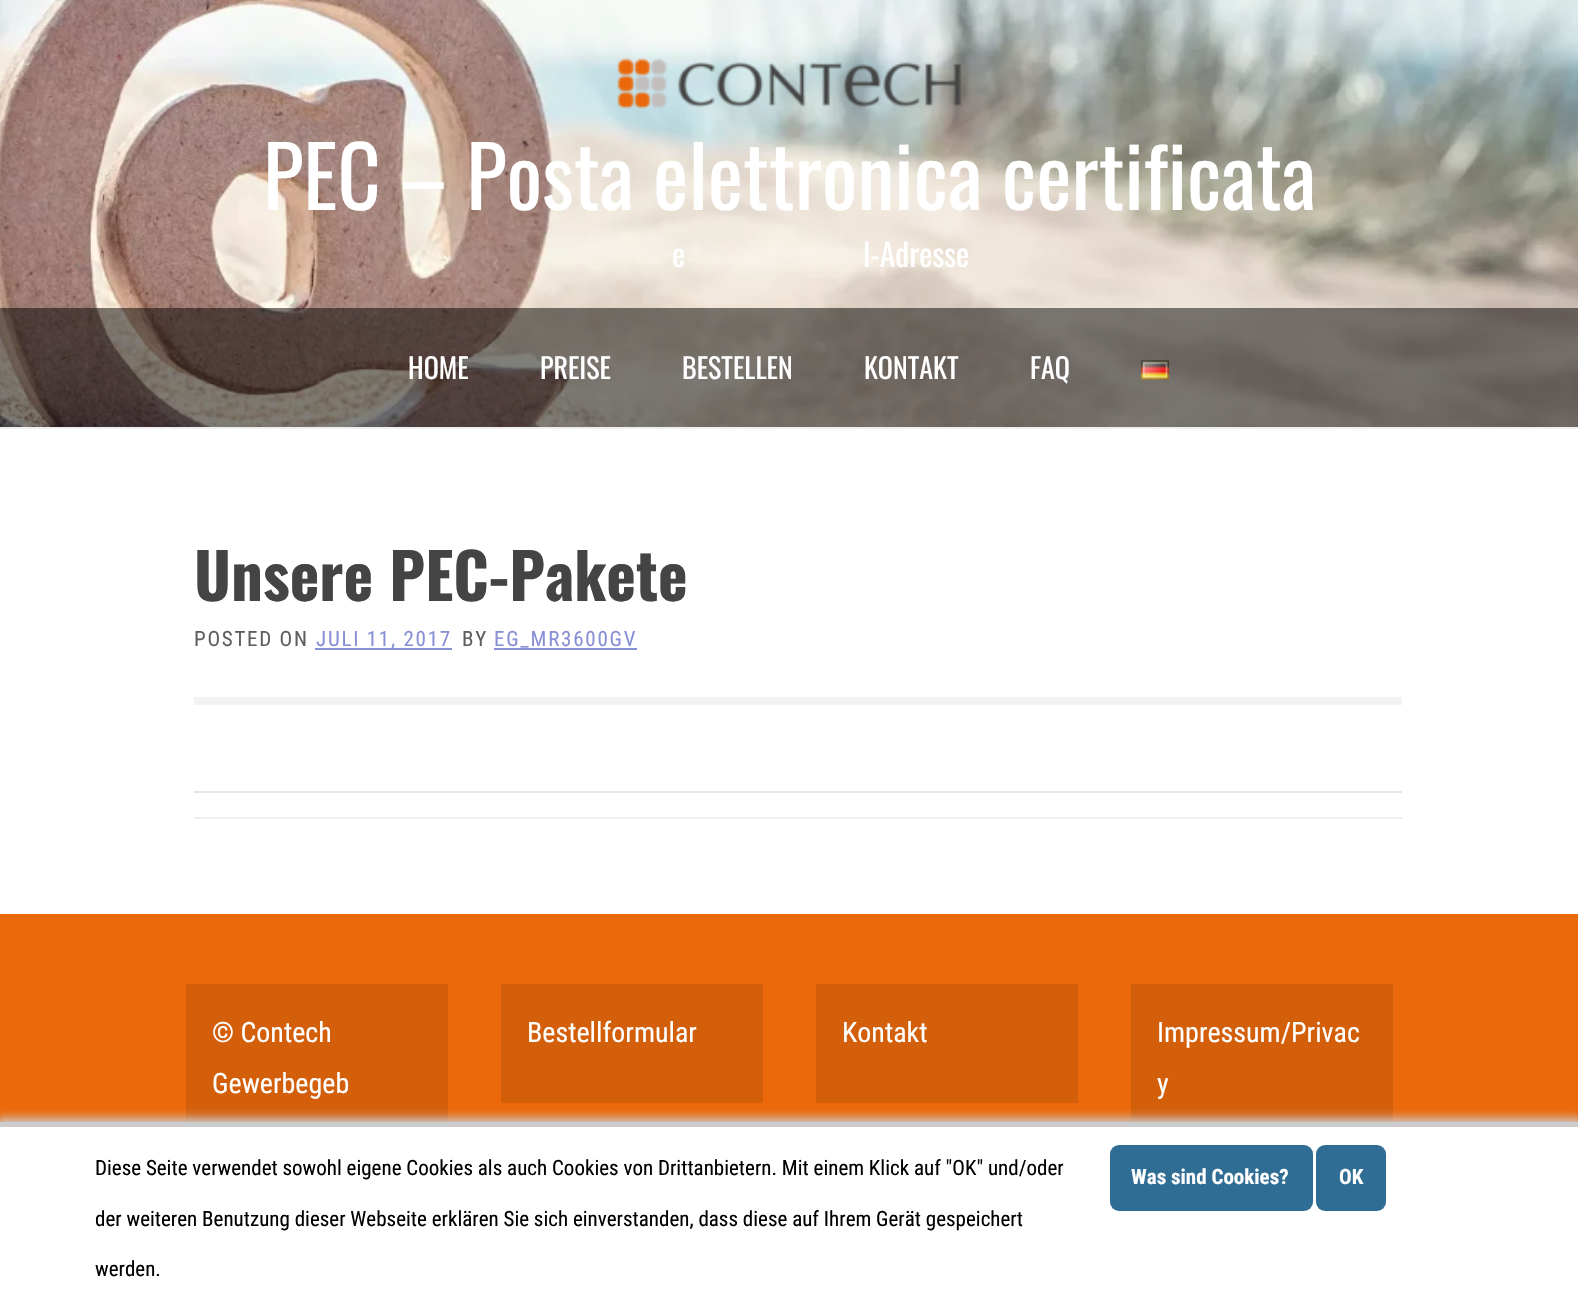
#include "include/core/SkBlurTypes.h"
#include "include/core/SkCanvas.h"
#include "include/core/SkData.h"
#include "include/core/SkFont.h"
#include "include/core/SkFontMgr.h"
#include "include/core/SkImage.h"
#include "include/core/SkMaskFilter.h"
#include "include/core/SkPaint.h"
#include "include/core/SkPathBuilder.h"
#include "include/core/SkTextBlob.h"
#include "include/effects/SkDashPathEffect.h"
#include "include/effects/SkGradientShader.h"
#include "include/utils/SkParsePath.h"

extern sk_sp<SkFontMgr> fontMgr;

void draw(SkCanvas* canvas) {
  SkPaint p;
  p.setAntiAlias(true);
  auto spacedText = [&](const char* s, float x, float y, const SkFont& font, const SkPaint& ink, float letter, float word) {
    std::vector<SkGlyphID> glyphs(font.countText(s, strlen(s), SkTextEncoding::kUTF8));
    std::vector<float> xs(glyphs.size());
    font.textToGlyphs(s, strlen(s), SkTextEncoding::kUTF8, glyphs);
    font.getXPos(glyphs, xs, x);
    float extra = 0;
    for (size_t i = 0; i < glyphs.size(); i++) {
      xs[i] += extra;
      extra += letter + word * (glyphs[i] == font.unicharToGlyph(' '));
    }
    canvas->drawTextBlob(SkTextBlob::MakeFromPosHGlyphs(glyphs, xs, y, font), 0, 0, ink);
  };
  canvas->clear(SK_ColorWHITE);
  canvas->drawImageRect(SkImages::DeferredFromEncodedData(SkData::MakeFromFileName("images/1.png")), SkRect::MakeLTRB(0, 0, 1578, 427), SkSamplingOptions());
  canvas->drawImageRect(SkImages::DeferredFromEncodedData(SkData::MakeFromFileName("images/2.png")), SkRect::MakeLTRB(617, 57, 962, 109), SkSamplingOptions());
  p.setColor(SkColorSetARGB(128, 0, 0, 0));
  canvas->drawRect(SkRect::MakeLTRB(0, 308, 1578, 427), p);
  p.setColor(SkColorSetRGB(240, 240, 240));
  canvas->drawRect(SkRect::MakeLTRB(0, 427, 1578, 429), p);
  canvas->drawImageRect(SkImages::DeferredFromEncodedData(SkData::MakeFromFileName("images/3.png")), SkRect::MakeLTRB(1141, 360, 1169, 380), SkSamplingOptions());
  p.setColor(SkColorSetRGB(136, 144, 213));
  canvas->drawRect(SkRect::MakeLTRB(315, 648, 452, 650), p);
  canvas->drawRect(SkRect::MakeLTRB(494, 648, 637, 650), p);
  p.setColor(SkColorSetRGB(242, 242, 242));
  canvas->drawRect(SkRect::MakeLTRB(194, 697, 1402, 705), p);
  p.setColor(SkColorSetRGB(230, 230, 230));
  canvas->drawRect(SkRect::MakeLTRB(194, 791, 1402, 793), p);
  p.setColor(SkColorSetRGB(240, 240, 240));
  canvas->drawRect(SkRect::MakeLTRB(194, 817, 1402, 819), p);
  p.setColor(SkColorSetRGB(235, 105, 11));
  canvas->drawRect(SkRect::MakeLTRB(0, 914, 1578, 1122), p);
  p.setColor(SkColorSetRGB(212, 95, 10));
  canvas->drawRect(SkRect::MakeLTRB(186, 984, 448, 1122), p);
  canvas->drawRect(SkRect::MakeLTRB(501, 984, 763, 1103), p);
  canvas->drawRect(SkRect::MakeLTRB(816, 984, 1078, 1103), p);
  canvas->drawRect(SkRect::MakeLTRB(1131, 984, 1393, 1122), p);
  p.setColor(SkColorSetRGB(204, 204, 204));
  p.setMaskFilter(SkMaskFilter::MakeBlur(kNormal_SkBlurStyle, 4.5f));
  canvas->drawRect(SkRect::MakeLTRB(-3, 1118, 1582, 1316), p);
  p.setMaskFilter(nullptr);
  p.setColor(SK_ColorWHITE);
  canvas->drawRect(SkRect::MakeLTRB(0, 1127, 1578, 1312), p);
  p.setColor(SkColorSetRGB(204, 204, 204));
  canvas->drawRect(SkRect::MakeLTRB(0, 1122, 1578, 1127), p);
  p.setColor(SkColorSetRGB(47, 109, 148));
  canvas->drawRoundRect(SkRect::MakeLTRB(1110, 1145, 1313, 1211), 9, 9, p);
  canvas->drawRoundRect(SkRect::MakeLTRB(1316, 1145, 1386, 1211), 9, 9, p);
  SkFont font1(fontMgr->matchFamilyStyle("Oswald", SkFontStyle::Normal()), 84);
  font1.setSubpixel(true);
  p.setColor(SK_ColorWHITE);
  canvas->drawString("PEC – Posta elettronica certificata", 263, 210, font1, p);
  SkFont font2(fontMgr->matchFamilyStyle("Oswald", SkFontStyle::Normal()), 31.5f);
  font2.setSubpixel(true);
  canvas->drawString("e", 672, 267, font2, p);
  canvas->drawString("l-Adresse", 863, 267, font2, p);
  SkFont font3(fontMgr->matchFamilyStyle("Oswald", SkFontStyle::Normal()), 28);
  font3.setSubpixel(true);
  canvas->drawString("HOME", 408, 379, font3, p);
  canvas->drawString("PREISE", 540, 379, font3, p);
  canvas->drawString("BESTELLEN", 682, 379, font3, p);
  canvas->drawString("KONTAKT", 864, 379, font3, p);
  canvas->drawString("FAQ", 1030, 379, font3, p);
  SkFont font4(fontMgr->matchFamilyStyle("Oswald", SkFontStyle::Bold()), 63);
  font4.setSubpixel(true);
  p.setColor(SkColorSetRGB(68, 68, 68));
  canvas->drawString("Unsere PEC-Pakete", 194, 601, font4, p);
  SkFont font5(fontMgr->matchFamilyStyle("Roboto Condensed", SkFontStyle::Normal()), 21);
  font5.setSubpixel(true);
  p.setColor(SkColorSetRGB(94, 94, 94));
  spacedText("POSTED ON", 194, 646, font5, p, 1.75f, 0);
  p.setColor(SkColorSetRGB(136, 144, 213));
  spacedText("JULI 11, 2017", 316, 646, font5, p, 1.75f, 0);
  p.setColor(SkColorSetRGB(94, 94, 94));
  spacedText("BY", 462, 646, font5, p, 1.75f, 0);
  p.setColor(SkColorSetRGB(136, 144, 213));
  spacedText("EG_MR3600GV", 494, 646, font5, p, 1.75f, 0);
  SkFont font6(fontMgr->matchFamilyStyle("Roboto Condensed", SkFontStyle::Normal()), 28);
  font6.setSubpixel(true);
  p.setColor(SK_ColorWHITE);
  canvas->drawString("© Contech", 212, 1042, font6, p);
  canvas->drawString("Gewerbegeb", 212, 1093, font6, p);
  canvas->drawString("Bestellformular", 527, 1042, font6, p);
  canvas->drawString("Kontakt", 842, 1042, font6, p);
  canvas->drawString("Impressum/Privac", 1157, 1042, font6, p);
  canvas->drawString("y", 1157, 1093, font6, p);
  p.setColor(SK_ColorBLACK);
  canvas->drawString("Diese Seite verwendet sowohl eigene Cookies als auch Cookies von Drittanbietern. Mit einem Klick auf \"OK\" und/oder", 95, 1175, font5, p);
  canvas->drawString("der weiteren Benutzung dieser Webseite erklären Sie sich einverstanden, dass diese auf Ihrem Gerät gespeichert", 95, 1226, font5, p);
  canvas->drawString("werden.", 95, 1276, font5, p);
  SkFont font7(fontMgr->matchFamilyStyle("Roboto Condensed", SkFontStyle::Bold()), 21);
  font7.setSubpixel(true);
  p.setColor(SK_ColorWHITE);
  canvas->drawString("Was sind Cookies?", 1131, 1184, font7, p);
  canvas->drawString("OK", 1339, 1184, font7, p);
}
